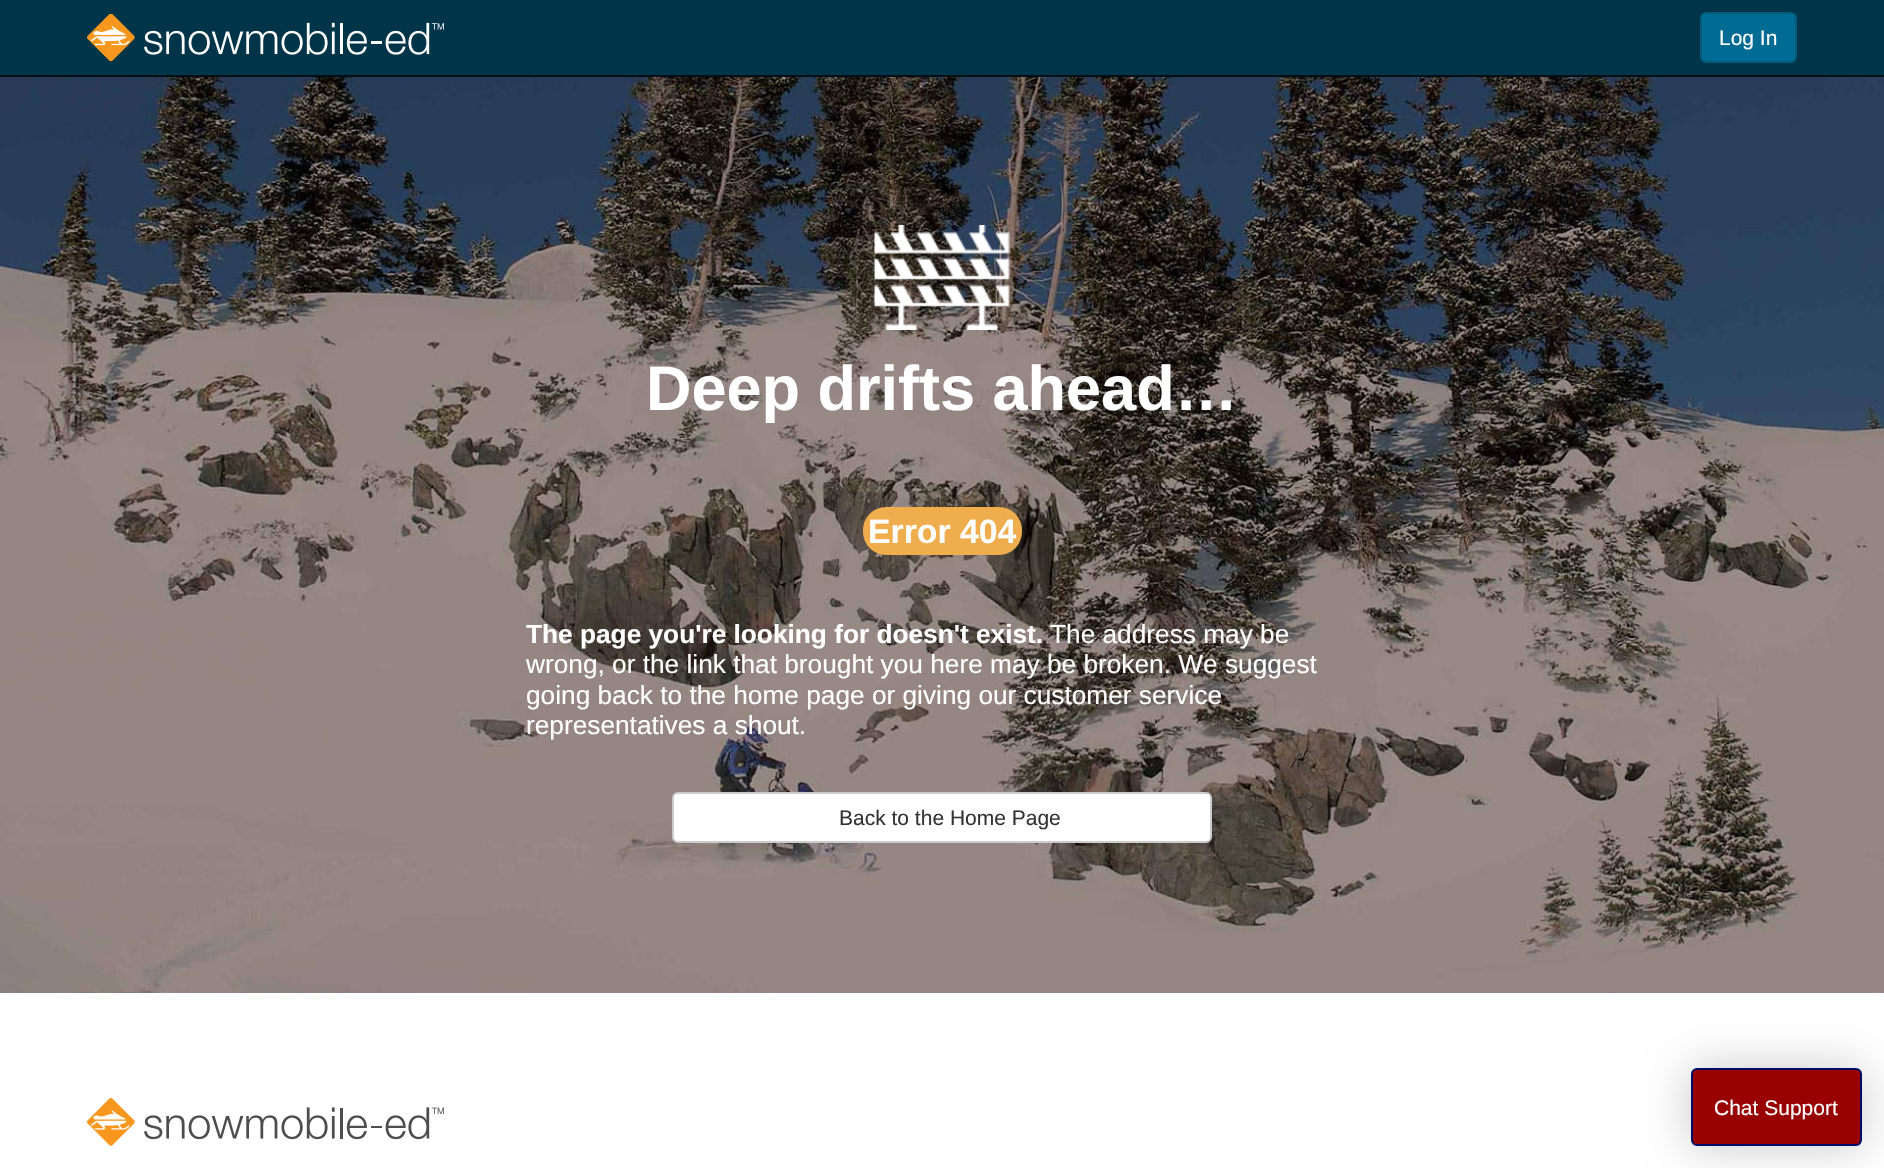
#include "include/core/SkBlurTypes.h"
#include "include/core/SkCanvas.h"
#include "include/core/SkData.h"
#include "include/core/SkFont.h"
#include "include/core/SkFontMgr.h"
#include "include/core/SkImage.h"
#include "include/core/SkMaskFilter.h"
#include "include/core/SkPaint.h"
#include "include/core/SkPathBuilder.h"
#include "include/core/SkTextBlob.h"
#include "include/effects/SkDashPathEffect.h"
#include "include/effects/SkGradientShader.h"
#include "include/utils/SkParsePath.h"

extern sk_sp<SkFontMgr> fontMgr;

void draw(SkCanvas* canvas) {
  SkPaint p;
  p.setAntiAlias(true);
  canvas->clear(SK_ColorWHITE);
  p.setColor(SkColorSetRGB(0, 52, 72));
  canvas->drawRect(SkRect::MakeLTRB(0, 0, 1884, 75), p);
  p.setColor(SkColorSetRGB(0, 15, 21));
  canvas->drawRect(SkRect::MakeLTRB(0, 75, 1884, 77), p);
  canvas->drawImageRect(SkImages::DeferredFromEncodedData(SkData::MakeFromFileName("images/1.png")), SkRect::MakeLTRB(87, 14, 444, 62), SkSamplingOptions());
  p.setColor(SkColorSetRGB(0, 108, 148));
  canvas->drawRoundRect(SkRect::MakeLTRB(1701, 13, 1796, 62), 5, 5, p);
  p.setStyle(SkPaint::kStroke_Style);
  p.setStrokeWidth(2);
  p.setColor(SkColorSetRGB(0, 90, 123));
  canvas->drawRoundRect(SkRect::MakeLTRB(1701, 13, 1796, 62), 5, 5, p);
  canvas->drawImageRect(SkImages::DeferredFromEncodedData(SkData::MakeFromFileName("images/2.png")), SkRect::MakeLTRB(0, 77, 1884, 993), SkSamplingOptions());
  canvas->drawImageRect(SkImages::DeferredFromEncodedData(SkData::MakeFromFileName("images/3.png")), SkRect::MakeLTRB(874, 225, 1010, 330), SkSamplingOptions());
  p.setStyle(SkPaint::kFill_Style);
  p.setColor(SkColorSetRGB(240, 173, 78));
  canvas->drawRoundRect(SkRect::MakeLTRB(863, 507, 1022, 555), 23, 23, p);
  p.setColor(SK_ColorWHITE);
  canvas->drawRoundRect(SkRect::MakeLTRB(673, 793, 1211, 842), 5, 5, p);
  p.setStyle(SkPaint::kStroke_Style);
  p.setColor(SkColorSetRGB(204, 204, 204));
  canvas->drawRoundRect(SkRect::MakeLTRB(673, 793, 1211, 842), 5, 5, p);
  canvas->drawImageRect(SkImages::DeferredFromEncodedData(SkData::MakeFromFileName("images/4.png")), SkRect::MakeLTRB(87, 1098, 444, 1146), SkSamplingOptions());
  p.setStyle(SkPaint::kFill_Style);
  p.setColor(SkColorSetARGB(51, 0, 0, 0));
  p.setMaskFilter(SkMaskFilter::MakeBlur(kNormal_SkBlurStyle, 22.5f));
  canvas->drawRoundRect(SkRect::MakeLTRB(1689, 1067, 1863, 1148), 8, 8, p);
  p.setMaskFilter(nullptr);
  p.setColor(SkColorSetRGB(153, 0, 0));
  canvas->drawRoundRect(SkRect::MakeLTRB(1692, 1069, 1861, 1145), 5, 5, p);
  p.setStyle(SkPaint::kStroke_Style);
  p.setColor(SkColorSetRGB(0, 12, 102));
  canvas->drawRoundRect(SkRect::MakeLTRB(1692, 1069, 1861, 1145), 5, 5, p);
  SkFont font1(fontMgr->matchFamilyStyle("Liberation Sans", SkFontStyle::Normal()), 21);
  font1.setSubpixel(true);
  p.setStyle(SkPaint::kFill_Style);
  p.setColor(SK_ColorWHITE);
  canvas->drawString("Log In", 1719, 45, font1, p);
  SkFont font2(fontMgr->matchFamilyStyle("Liberation Sans", SkFontStyle::Bold()), 63);
  font2.setSubpixel(true);
  canvas->drawString("Deep drifts ahead…", 646, 410, font2, p);
  SkFont font3(fontMgr->matchFamilyStyle("Liberation Sans", SkFontStyle::Bold()), 33.75f);
  font3.setSubpixel(true);
  canvas->drawString("Error 404", 868, 543, font3, p);
  SkFont font4(fontMgr->matchFamilyStyle("Liberation Sans", SkFontStyle::Bold()), 26.25f);
  font4.setSubpixel(true);
  canvas->drawString("The page you're looking for doesn't exist.", 526, 643, font4, p);
  SkFont font5(fontMgr->matchFamilyStyle("Liberation Sans", SkFontStyle::Normal()), 26.25f);
  font5.setSubpixel(true);
  canvas->drawString("The address may be", 1050, 643, font5, p);
  canvas->drawString("wrong, or the link that brought you here may be broken. We suggest", 526, 673, font5, p);
  canvas->drawString("going back to the home page or giving our customer service", 526, 704, font5, p);
  canvas->drawString("representatives a shout.", 526, 734, font5, p);
  p.setColor(SkColorSetRGB(51, 51, 51));
  canvas->drawString("Back to the Home Page", 839, 825, font1, p);
  p.setColor(SK_ColorWHITE);
  canvas->drawString("Chat Support", 1714, 1115, font1, p);
}
